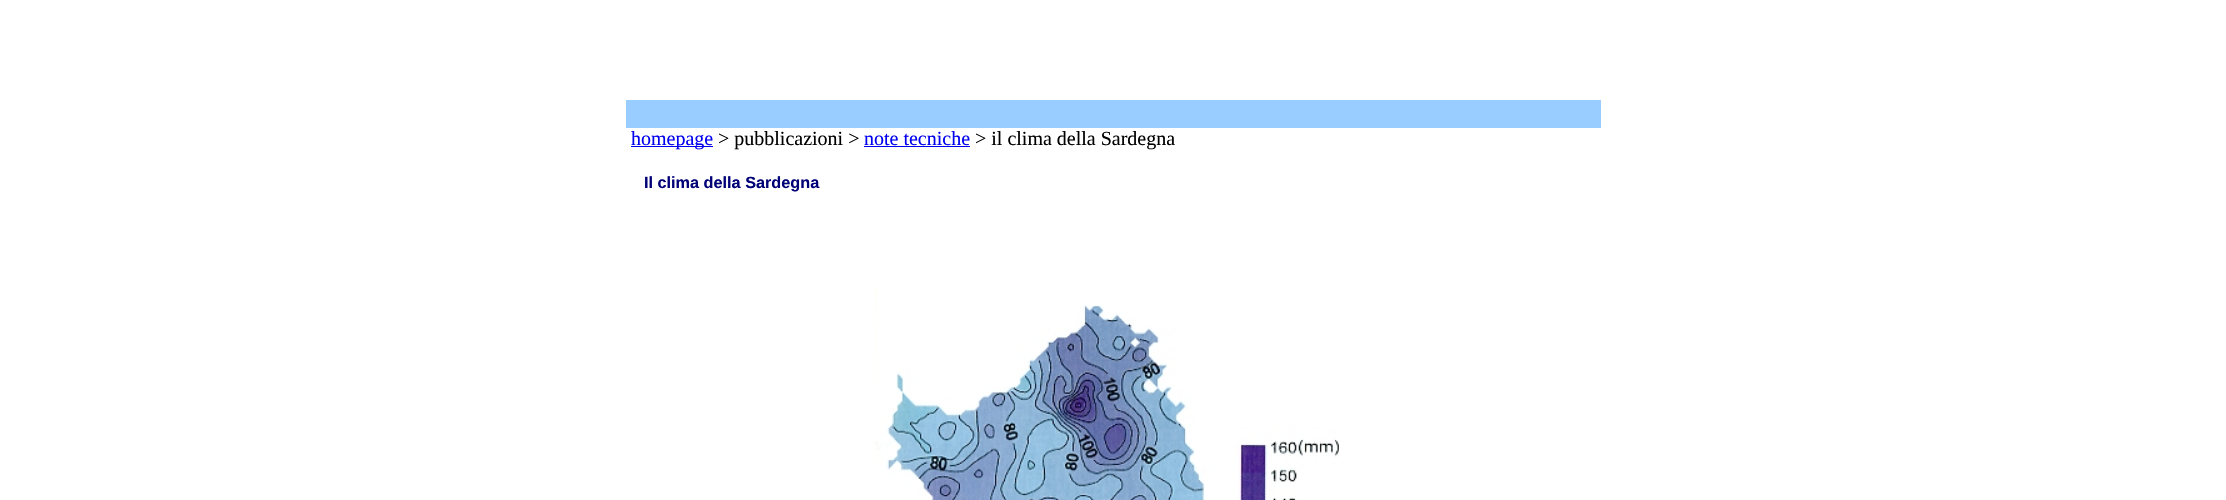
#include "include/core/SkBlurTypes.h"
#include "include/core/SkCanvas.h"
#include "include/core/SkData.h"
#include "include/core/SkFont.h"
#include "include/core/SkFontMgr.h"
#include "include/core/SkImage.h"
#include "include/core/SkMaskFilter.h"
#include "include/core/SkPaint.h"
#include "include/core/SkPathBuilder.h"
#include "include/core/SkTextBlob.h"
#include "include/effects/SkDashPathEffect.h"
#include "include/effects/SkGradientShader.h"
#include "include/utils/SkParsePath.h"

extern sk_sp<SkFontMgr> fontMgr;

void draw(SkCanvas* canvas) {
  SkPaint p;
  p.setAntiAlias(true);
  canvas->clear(SK_ColorWHITE);
  p.setColor(SkColorSetRGB(153, 204, 255));
  canvas->drawRect(SkRect::MakeLTRB(626, 100, 1601, 128), p);
  p.setColor(SkColorSetRGB(0, 0, 238));
  canvas->drawRect(SkRect::MakeLTRB(631, 146, 713, 147), p);
  canvas->drawRect(SkRect::MakeLTRB(864, 146, 970, 147), p);
  canvas->drawImageRect(SkImages::DeferredFromEncodedData(SkData::MakeFromFileName("images/1.png")), SkRect::MakeLTRB(875, 287, 1339, 500), SkSamplingOptions());
  SkFont font1(fontMgr->matchFamilyStyle("Liberation Serif", SkFontStyle::Normal()), 20);
  font1.setSubpixel(true);
  canvas->drawString("homepage", 631, 145, font1, p);
  p.setColor(SK_ColorBLACK);
  canvas->drawString("> pubblicazioni >", 718, 145, font1, p);
  p.setColor(SkColorSetRGB(0, 0, 238));
  canvas->drawString("note tecniche", 864, 145, font1, p);
  p.setColor(SK_ColorBLACK);
  canvas->drawString("> il clima della Sardegna", 975, 145, font1, p);
  SkFont font2(fontMgr->matchFamilyStyle("Liberation Sans", SkFontStyle::Bold()), 16.25f);
  font2.setSubpixel(true);
  p.setColor(SkColorSetRGB(0, 0, 119));
  canvas->drawString("Il clima della Sardegna", 644, 188, font2, p);
}
